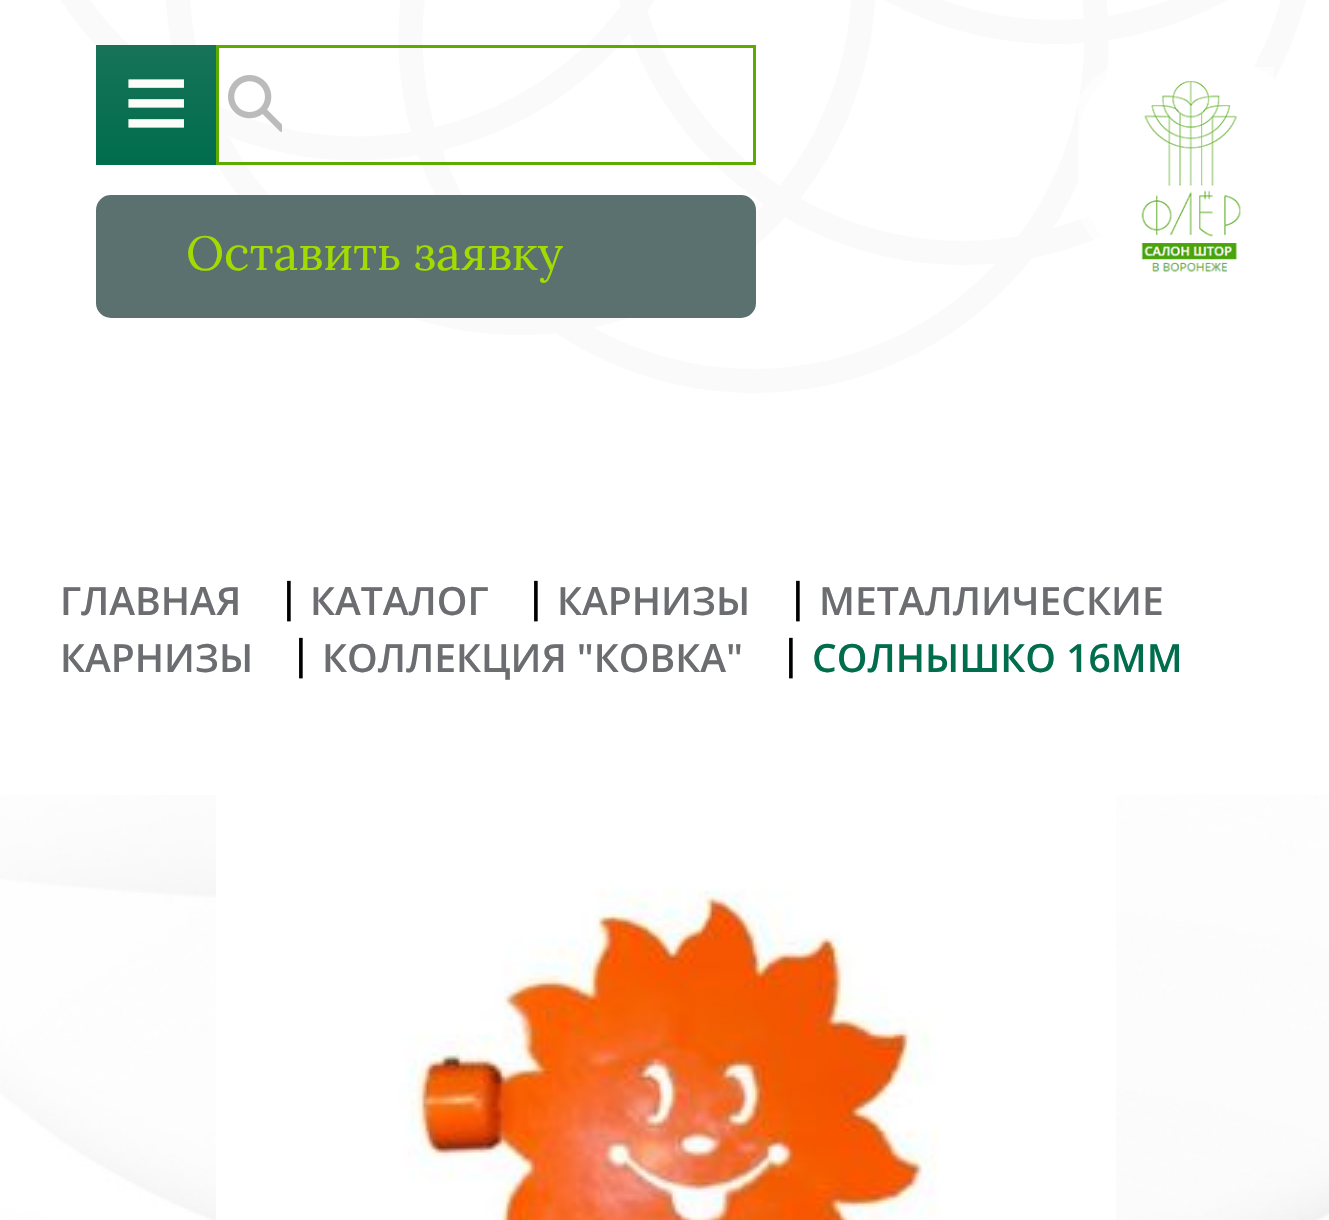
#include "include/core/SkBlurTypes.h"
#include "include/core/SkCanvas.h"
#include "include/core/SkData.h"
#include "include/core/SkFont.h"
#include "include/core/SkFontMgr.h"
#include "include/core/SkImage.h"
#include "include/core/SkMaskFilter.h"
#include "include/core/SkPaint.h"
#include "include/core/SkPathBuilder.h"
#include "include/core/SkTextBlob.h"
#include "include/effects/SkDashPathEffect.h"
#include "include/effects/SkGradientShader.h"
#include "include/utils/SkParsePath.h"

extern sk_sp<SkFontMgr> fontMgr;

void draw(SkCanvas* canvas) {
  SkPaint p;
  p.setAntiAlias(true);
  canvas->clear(SK_ColorWHITE);
  p.setStyle(SkPaint::kStroke_Style);
  p.setStrokeWidth(24);
  p.setColor(SkColorSetRGB(250, 250, 250));
  canvas->drawCircle(1056, -311, 343, p);
  canvas->drawCircle(962.5f, -90, 343, p);
  canvas->drawCircle(753.5f, 38, 343, p);
  canvas->drawCircle(520.5f, -20, 343, p);
  canvas->drawCircle(357.5f, -194.5f, 343, p);
  p.setStyle(SkPaint::kFill_Style);
  {
    const SkColor colors[] = {SkColorSetRGB(23, 115, 88), SkColorSetRGB(0, 109, 76)};
    const float stops[] = {0, 1};
    const SkPoint ends[] = {{156, 45}, {156, 165}};
    p.setShader(SkGradientShader::MakeLinear(ends, colors, stops, 2, SkTileMode::kClamp));
    p.setAlpha(255);
  }
  canvas->drawRect(SkRect::MakeLTRB(96, 45, 216, 165), p);
  p.setStyle(SkPaint::kStroke_Style);
  p.setStrokeWidth(3);
  p.setShader(nullptr);
  p.setColor(SkColorSetRGB(94, 170, 0));
  canvas->drawRect(SkRect::MakeLTRB(217.5f, 46.5f, 754.5f, 163.5f), p);
  canvas->drawImageRect(SkImages::DeferredFromEncodedData(SkData::MakeFromFileName("images/1.png")), SkRect::MakeLTRB(228, 75, 282, 132), SkSamplingOptions());
  p.setStyle(SkPaint::kFill_Style);
  p.setColor(SkColorSetRGB(91, 113, 111));
  canvas->drawRoundRect(SkRect::MakeLTRB(96, 195, 756, 318), 15, 15, p);
  canvas->drawImageRect(SkImages::DeferredFromEncodedData(SkData::MakeFromFileName("images/2.png")), SkRect::MakeLTRB(1078, 67, 1274, 272), SkSamplingOptions());
  canvas->drawImageRect(SkImages::DeferredFromEncodedData(SkData::MakeFromFileName("images/3.png")), SkRect::MakeLTRB(0, 795, 1329, 1220), SkSamplingOptions());
  canvas->drawImageRect(SkImages::DeferredFromEncodedData(SkData::MakeFromFileName("images/4.png")), SkRect::MakeLTRB(216, 795, 1116, 1220), SkSamplingOptions());
  SkFont font1(fontMgr->matchFamilyStyle("Liberation Sans", SkFontStyle::Bold()), 114);
  font1.setSubpixel(true);
  p.setColor(SkColorSetRGB(252, 252, 249));
  canvas->drawString("≡", 123, 141, font1, p);
  SkFont font2(fontMgr->matchFamilyStyle("Lora", SkFontStyle::Normal()), 48);
  font2.setSubpixel(true);
  p.setColor(SkColorSetRGB(160, 220, 0));
  canvas->drawString("Оставить заявку", 186, 270, font2, p);
  SkFont font3(fontMgr->matchFamilyStyle("Open Sans", SkFontStyle(600, SkFontStyle::kNormal_Width, SkFontStyle::kUpright_Slant)), 39);
  font3.setSubpixel(true);
  p.setColor(SkColorSetRGB(108, 109, 112));
  canvas->drawString("ГЛАВНАЯ", 60, 615, font3, p);
  SkFont font4(fontMgr->matchFamilyStyle("Roboto", SkFontStyle::Normal()), 48);
  font4.setSubpixel(true);
  p.setColor(SK_ColorBLACK);
  canvas->drawString("|", 283, 615, font4, p);
  p.setColor(SkColorSetRGB(108, 109, 112));
  canvas->drawString("КАТАЛОГ", 310, 615, font3, p);
  p.setColor(SK_ColorBLACK);
  canvas->drawString("|", 530, 615, font4, p);
  p.setColor(SkColorSetRGB(108, 109, 112));
  canvas->drawString("КАРНИЗЫ", 557, 615, font3, p);
  p.setColor(SK_ColorBLACK);
  canvas->drawString("|", 792, 615, font4, p);
  p.setColor(SkColorSetRGB(108, 109, 112));
  canvas->drawString("МЕТАЛЛИЧЕСКИЕ", 819, 615, font3, p);
  canvas->drawString("КАРНИЗЫ", 60, 672, font3, p);
  p.setColor(SK_ColorBLACK);
  canvas->drawString("|", 295, 672, font4, p);
  p.setColor(SkColorSetRGB(108, 109, 112));
  canvas->drawString("КОЛЛЕКЦИЯ \"КОВКА\"", 322, 672, font3, p);
  p.setColor(SK_ColorBLACK);
  canvas->drawString("|", 785, 672, font4, p);
  p.setColor(SkColorSetRGB(0, 109, 76));
  canvas->drawString("СОЛНЫШКО 16ММ", 812, 672, font3, p);
}
